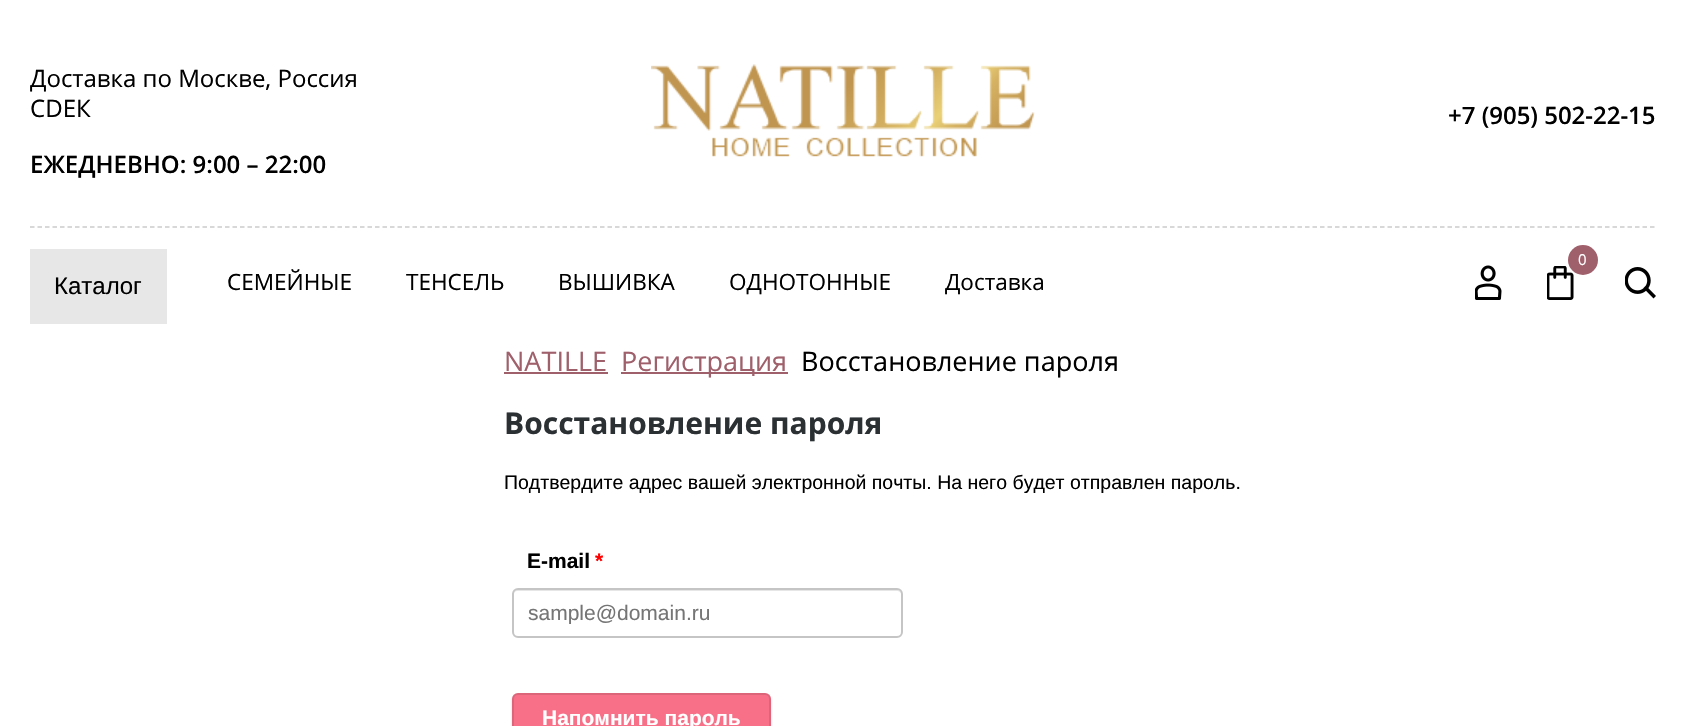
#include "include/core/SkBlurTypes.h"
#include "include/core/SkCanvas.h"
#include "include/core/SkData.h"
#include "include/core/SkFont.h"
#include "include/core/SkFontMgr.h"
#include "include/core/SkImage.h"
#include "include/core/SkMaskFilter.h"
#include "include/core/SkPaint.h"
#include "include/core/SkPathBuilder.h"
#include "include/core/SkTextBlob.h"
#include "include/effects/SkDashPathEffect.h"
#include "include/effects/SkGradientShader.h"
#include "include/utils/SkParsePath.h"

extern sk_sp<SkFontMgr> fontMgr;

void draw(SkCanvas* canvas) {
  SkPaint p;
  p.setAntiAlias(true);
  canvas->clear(SK_ColorWHITE);
  p.setStyle(SkPaint::kStroke_Style);
  p.setStrokeWidth(1.5f);
  p.setColor(SkColorSetRGB(204, 204, 204));
  p.setPathEffect(SkDashPathEffect::Make({{4.5f, 3}}, 0));
  canvas->drawPath(SkPathBuilder().moveTo(30, 227).lineTo(1656, 227).detach(), p);
  p.setPathEffect(nullptr);
  canvas->drawImageRect(SkImages::DeferredFromEncodedData(SkData::MakeFromFileName("images/1.png")), SkRect::MakeLTRB(651, 64, 1035, 157), SkSamplingOptions());
  canvas->drawImageRect(SkImages::DeferredFromEncodedData(SkData::MakeFromFileName("images/2.png")), SkRect::MakeLTRB(1547, 266, 1574, 300), SkSamplingOptions());
  p.setStyle(SkPaint::kFill_Style);
  p.setColor(SkColorSetRGB(159, 96, 107));
  canvas->drawCircle(1583, 260, 15, p);
  canvas->drawImageRect(SkImages::DeferredFromEncodedData(SkData::MakeFromFileName("images/3.png")), SkRect::MakeLTRB(1475, 265, 1502, 300), SkSamplingOptions());
  canvas->drawImageRect(SkImages::DeferredFromEncodedData(SkData::MakeFromFileName("images/4.png")), SkRect::MakeLTRB(1625, 267, 1656, 299), SkSamplingOptions());
  p.setColor(SkColorSetRGB(231, 231, 231));
  canvas->drawRect(SkRect::MakeLTRB(30, 249, 167, 324), p);
  p.setColor(SkColorSetRGB(159, 96, 107));
  canvas->drawRect(SkRect::MakeLTRB(504, 372, 608, 374), p);
  canvas->drawRect(SkRect::MakeLTRB(621, 372, 788, 374), p);
  p.setColor(SkColorSetRGB(230, 230, 230));
  canvas->drawPath(SkPathBuilder().moveTo(518, 591).lineTo(897, 591).cubicTo(899, 591, 902, 593, 902, 596).lineTo(902, 595).cubicTo(902, 592, 900, 590, 897, 590).lineTo(518, 590).cubicTo(515, 590, 513, 592, 513, 595).lineTo(513, 596).cubicTo(513, 593, 515, 591, 518, 591).close().detach(), p);
  p.setStyle(SkPaint::kStroke_Style);
  p.setStrokeWidth(2);
  p.setColor(SkColorSetRGB(197, 197, 197));
  canvas->drawRoundRect(SkRect::MakeLTRB(513, 589, 902, 637), 5, 5, p);
  p.setStyle(SkPaint::kFill_Style);
  p.setColor(SkColorSetARGB(51, 0, 0, 0));
  p.setMaskFilter(SkMaskFilter::MakeBlur(kNormal_SkBlurStyle, 1));
  canvas->drawRoundRect(SkRect::MakeLTRB(512, 695, 771, 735), 6, 6, p);
  p.setMaskFilter(nullptr);
  p.setColor(SkColorSetRGB(247, 112, 136));
  canvas->drawRoundRect(SkRect::MakeLTRB(512, 693, 771, 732), 6, 6, p);
  p.setStyle(SkPaint::kStroke_Style);
  p.setColor(SkColorSetARGB(26, 0, 0, 0));
  canvas->drawRoundRect(SkRect::MakeLTRB(513, 694, 770, 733), 5, 5, p);
  SkFont font1(fontMgr->matchFamilyStyle("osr", SkFontStyle::Normal()), 24);
  font1.setSubpixel(true);
  p.setStyle(SkPaint::kFill_Style);
  p.setColor(SK_ColorBLACK);
  canvas->drawString("Доставка по Москве, Россия", 30, 87, font1, p);
  canvas->drawString("CDЕК", 30, 117, font1, p);
  SkFont font2(fontMgr->matchFamilyStyle("Open Sans", SkFontStyle(600, SkFontStyle::kNormal_Width, SkFontStyle::kUpright_Slant)), 24);
  font2.setSubpixel(true);
  canvas->drawString("ЕЖЕДНЕВНО: 9:00 – 22:00", 30, 173, font2, p);
  canvas->drawString("+7 (905) 502-22-15", 1448, 124, font2, p);
  SkFont font3(fontMgr->matchFamilyStyle("osr", SkFontStyle::Normal()), 15);
  font3.setSubpixel(true);
  p.setColor(SK_ColorWHITE);
  canvas->drawString("0", 1578, 265, font3, p);
  SkFont font4(fontMgr->matchFamilyStyle("Liberation Sans", SkFontStyle::Normal()), 24);
  font4.setSubpixel(true);
  p.setColor(SK_ColorBLACK);
  canvas->drawString("Каталог", 54, 294, font4, p);
  SkFont font5(fontMgr->matchFamilyStyle("osr", SkFontStyle::Normal()), 22.5f);
  font5.setSubpixel(true);
  canvas->drawString("СЕМЕЙНЫЕ", 227, 290, font5, p);
  canvas->drawString("ТЕНСЕЛЬ", 406, 290, font5, p);
  canvas->drawString("ВЫШИВКА", 558, 290, font5, p);
  canvas->drawString("ОДНОТОННЫЕ", 729, 290, font5, p);
  canvas->drawString("Доставка", 945, 290, font5, p);
  SkFont font6(fontMgr->matchFamilyStyle("osr", SkFontStyle::Normal()), 27);
  font6.setSubpixel(true);
  p.setColor(SkColorSetRGB(159, 96, 107));
  canvas->drawString("NATILLE", 504, 371, font6, p);
  canvas->drawString("Регистрация", 621, 371, font6, p);
  p.setColor(SK_ColorBLACK);
  canvas->drawString("Восстановление пароля", 801, 371, font6, p);
  SkFont font7(fontMgr->matchFamilyStyle("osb", SkFontStyle::Bold()), 30);
  font7.setSubpixel(true);
  p.setColor(SkColorSetRGB(43, 48, 51));
  canvas->drawString("Восстановление пароля", 504, 434, font7, p);
  SkFont font8(fontMgr->matchFamilyStyle("Liberation Sans", SkFontStyle::Normal()), 19.5f);
  font8.setSubpixel(true);
  p.setColor(SK_ColorBLACK);
  canvas->drawString("Подтвердите адрес вашей электронной почты. На него будет отправлен пароль.", 504, 489, font8, p);
  SkFont font9(fontMgr->matchFamilyStyle("Liberation Sans", SkFontStyle::Bold()), 21);
  font9.setSubpixel(true);
  canvas->drawString("E-mail", 527, 568, font9, p);
  p.setColor(SkColorSetRGB(255, 0, 0));
  canvas->drawString("*", 595, 568, font9, p);
  canvas->save();
  canvas->clipRect(SkRect::MakeLTRB(528, 600, 887, 624));
  SkFont font10(fontMgr->matchFamilyStyle("Liberation Sans", SkFontStyle::Normal()), 21);
  font10.setSubpixel(true);
  p.setColor(SkColorSetRGB(117, 117, 117));
  canvas->drawString("sample@domain.ru", 528, 620, font10, p);
  canvas->restore();
  p.setColor(SK_ColorWHITE);
  canvas->drawString("Напомнить пароль", 542, 725, font9, p);
}
